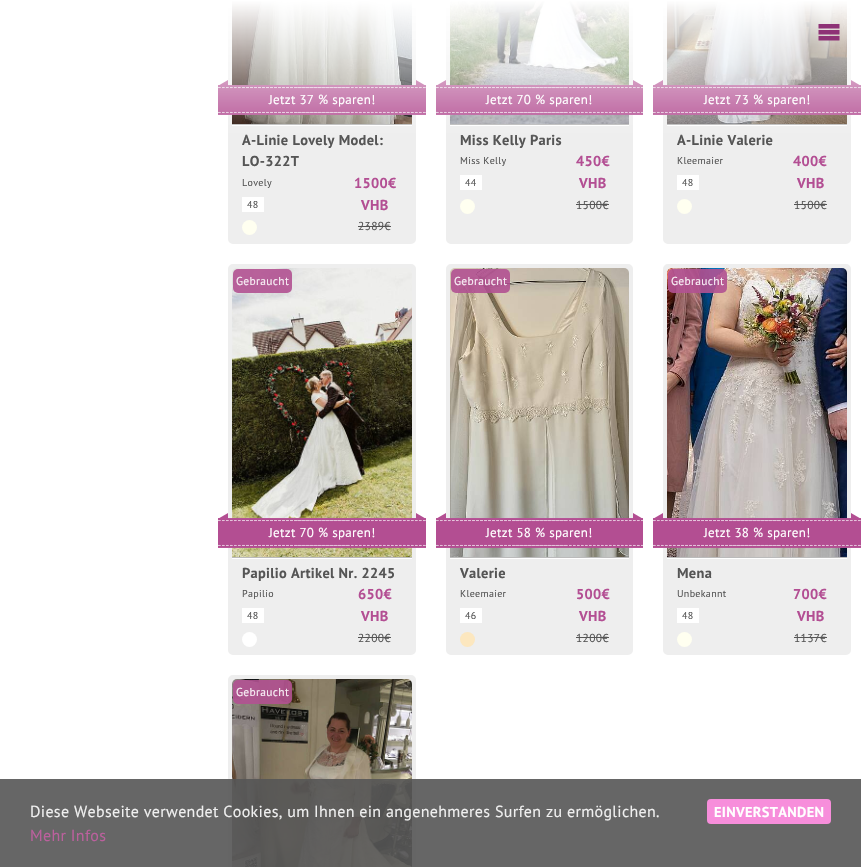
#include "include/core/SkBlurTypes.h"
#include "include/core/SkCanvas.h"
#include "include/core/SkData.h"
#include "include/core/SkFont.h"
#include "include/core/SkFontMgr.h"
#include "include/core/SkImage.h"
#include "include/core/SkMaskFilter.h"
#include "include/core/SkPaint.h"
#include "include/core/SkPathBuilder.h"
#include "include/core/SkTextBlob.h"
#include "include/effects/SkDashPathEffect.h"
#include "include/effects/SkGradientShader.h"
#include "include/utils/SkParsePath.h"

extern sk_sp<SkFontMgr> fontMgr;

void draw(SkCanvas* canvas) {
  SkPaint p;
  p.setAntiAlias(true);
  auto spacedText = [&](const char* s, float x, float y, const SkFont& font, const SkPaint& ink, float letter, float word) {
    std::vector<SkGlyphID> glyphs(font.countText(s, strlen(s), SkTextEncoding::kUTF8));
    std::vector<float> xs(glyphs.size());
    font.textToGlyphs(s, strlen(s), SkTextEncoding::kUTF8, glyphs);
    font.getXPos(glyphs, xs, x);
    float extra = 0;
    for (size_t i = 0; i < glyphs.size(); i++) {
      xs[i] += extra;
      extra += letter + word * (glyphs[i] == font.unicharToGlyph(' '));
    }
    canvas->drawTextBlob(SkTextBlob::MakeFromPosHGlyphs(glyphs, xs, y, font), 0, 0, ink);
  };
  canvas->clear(SK_ColorWHITE);
  p.setColor(SkColorSetRGB(238, 238, 238));
  canvas->drawRoundRect(SkRect::MakeLTRB(230, -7, 414, 242), 3, 3, p);
  p.setStyle(SkPaint::kStroke_Style);
  p.setStrokeWidth(4);
  canvas->drawRoundRect(SkRect::MakeLTRB(230, -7, 414, 242), 3, 3, p);
  canvas->drawImageRect(SkImages::DeferredFromEncodedData(SkData::MakeFromFileName("images/2.png")), SkRect::MakeLTRB(232, 1, 412, 124), SkSamplingOptions());
  p.setStyle(SkPaint::kFill_Style);
  p.setColor(SkColorSetRGB(187, 187, 187));
  canvas->drawRect(SkRect::MakeLTRB(232, 124, 412, 125), p);
  canvas->drawImageRect(SkImages::DeferredFromEncodedData(SkData::MakeFromFileName("images/3.png")), SkRect::MakeLTRB(219, 80, 228, 86), SkSamplingOptions());
  canvas->drawImageRect(SkImages::DeferredFromEncodedData(SkData::MakeFromFileName("images/4.png")), SkRect::MakeLTRB(416, 80, 425, 86), SkSamplingOptions());
  canvas->drawImageRect(SkImages::DeferredFromEncodedData(SkData::MakeFromFileName("images/5.png")), SkRect::MakeLTRB(218, 85, 426, 115), SkSamplingOptions());
  p.setColor(SK_ColorWHITE);
  canvas->drawRect(SkRect::MakeLTRB(232, 125, 412, 126), p);
  canvas->drawRect(SkRect::MakeLTRB(242, 197, 264, 212), p);
  p.setColor(SkColorSetRGB(255, 255, 240));
  canvas->drawCircle(249.5f, 227.5f, 7.5f, p);
  p.setColor(SkColorSetRGB(85, 85, 85));
  canvas->drawRect(SkRect::MakeLTRB(358, 226, 391, 227), p);
  p.setColor(SkColorSetRGB(238, 238, 238));
  canvas->drawRoundRect(SkRect::MakeLTRB(448, -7, 631, 242), 3, 3, p);
  p.setStyle(SkPaint::kStroke_Style);
  canvas->drawRoundRect(SkRect::MakeLTRB(448, -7, 631, 242), 3, 3, p);
  canvas->drawImageRect(SkImages::DeferredFromEncodedData(SkData::MakeFromFileName("images/6.png")), SkRect::MakeLTRB(450, 1, 629, 124), SkSamplingOptions());
  p.setStyle(SkPaint::kFill_Style);
  p.setColor(SkColorSetRGB(187, 187, 187));
  canvas->drawRect(SkRect::MakeLTRB(450, 124, 629, 125), p);
  canvas->drawImageRect(SkImages::DeferredFromEncodedData(SkData::MakeFromFileName("images/3.png")), SkRect::MakeLTRB(437, 80, 446, 86), SkSamplingOptions());
  canvas->drawImageRect(SkImages::DeferredFromEncodedData(SkData::MakeFromFileName("images/4.png")), SkRect::MakeLTRB(633, 80, 642, 86), SkSamplingOptions());
  canvas->drawImageRect(SkImages::DeferredFromEncodedData(SkData::MakeFromFileName("images/7.png")), SkRect::MakeLTRB(436, 85, 643, 115), SkSamplingOptions());
  p.setColor(SK_ColorWHITE);
  canvas->drawRect(SkRect::MakeLTRB(450, 125, 629, 126), p);
  canvas->drawRect(SkRect::MakeLTRB(460, 175, 482, 190), p);
  p.setColor(SkColorSetRGB(255, 255, 240));
  canvas->drawCircle(467.5f, 206.5f, 7.5f, p);
  p.setColor(SkColorSetRGB(85, 85, 85));
  canvas->drawRect(SkRect::MakeLTRB(576, 204, 609, 205), p);
  p.setColor(SkColorSetRGB(238, 238, 238));
  canvas->drawRoundRect(SkRect::MakeLTRB(665, -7, 849, 242), 3, 3, p);
  p.setStyle(SkPaint::kStroke_Style);
  canvas->drawRoundRect(SkRect::MakeLTRB(665, -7, 849, 242), 3, 3, p);
  canvas->drawImageRect(SkImages::DeferredFromEncodedData(SkData::MakeFromFileName("images/8.png")), SkRect::MakeLTRB(667, 1, 847, 124), SkSamplingOptions());
  p.setStyle(SkPaint::kFill_Style);
  p.setColor(SkColorSetRGB(187, 187, 187));
  canvas->drawRect(SkRect::MakeLTRB(667, 124, 847, 125), p);
  canvas->drawImageRect(SkImages::DeferredFromEncodedData(SkData::MakeFromFileName("images/3.png")), SkRect::MakeLTRB(654, 80, 663, 86), SkSamplingOptions());
  canvas->drawImageRect(SkImages::DeferredFromEncodedData(SkData::MakeFromFileName("images/4.png")), SkRect::MakeLTRB(851, 80, 860, 86), SkSamplingOptions());
  canvas->drawImageRect(SkImages::DeferredFromEncodedData(SkData::MakeFromFileName("images/9.png")), SkRect::MakeLTRB(653, 85, 861, 115), SkSamplingOptions());
  p.setColor(SK_ColorWHITE);
  canvas->drawRect(SkRect::MakeLTRB(667, 125, 847, 126), p);
  canvas->drawRect(SkRect::MakeLTRB(677, 175, 699, 190), p);
  p.setColor(SkColorSetRGB(255, 255, 240));
  canvas->drawCircle(684.5f, 206.5f, 7.5f, p);
  p.setColor(SkColorSetRGB(85, 85, 85));
  canvas->drawRect(SkRect::MakeLTRB(794, 204, 827, 205), p);
  p.setColor(SkColorSetRGB(238, 238, 238));
  canvas->drawRoundRect(SkRect::MakeLTRB(230, 266, 414, 653), 3, 3, p);
  p.setStyle(SkPaint::kStroke_Style);
  canvas->drawRoundRect(SkRect::MakeLTRB(230, 266, 414, 653), 3, 3, p);
  canvas->drawImageRect(SkImages::DeferredFromEncodedData(SkData::MakeFromFileName("images/10.png")), SkRect::MakeLTRB(232, 268, 412, 557), SkSamplingOptions());
  p.setStyle(SkPaint::kFill_Style);
  p.setColor(SkColorSetRGB(187, 187, 187));
  canvas->drawRect(SkRect::MakeLTRB(232, 557, 412, 558), p);
  p.setColor(SkColorSetARGB(230, 177, 81, 145));
  canvas->drawRoundRect(SkRect::MakeLTRB(233, 269, 292, 293), 5, 5, p);
  canvas->drawImageRect(SkImages::DeferredFromEncodedData(SkData::MakeFromFileName("images/3.png")), SkRect::MakeLTRB(219, 513, 228, 519), SkSamplingOptions());
  canvas->drawImageRect(SkImages::DeferredFromEncodedData(SkData::MakeFromFileName("images/4.png")), SkRect::MakeLTRB(416, 513, 425, 519), SkSamplingOptions());
  canvas->drawImageRect(SkImages::DeferredFromEncodedData(SkData::MakeFromFileName("images/11.png")), SkRect::MakeLTRB(218, 518, 426, 548), SkSamplingOptions());
  p.setColor(SK_ColorWHITE);
  canvas->drawRect(SkRect::MakeLTRB(232, 558, 412, 559), p);
  canvas->drawRect(SkRect::MakeLTRB(242, 608, 264, 623), p);
  canvas->drawCircle(249.5f, 639.5f, 7.5f, p);
  p.setColor(SkColorSetRGB(85, 85, 85));
  canvas->drawRect(SkRect::MakeLTRB(358, 637, 391, 638), p);
  p.setColor(SkColorSetRGB(238, 238, 238));
  canvas->drawRoundRect(SkRect::MakeLTRB(448, 266, 631, 653), 3, 3, p);
  p.setStyle(SkPaint::kStroke_Style);
  canvas->drawRoundRect(SkRect::MakeLTRB(448, 266, 631, 653), 3, 3, p);
  canvas->drawImageRect(SkImages::DeferredFromEncodedData(SkData::MakeFromFileName("images/12.png")), SkRect::MakeLTRB(450, 268, 629, 557), SkSamplingOptions());
  p.setStyle(SkPaint::kFill_Style);
  p.setColor(SkColorSetRGB(187, 187, 187));
  canvas->drawRect(SkRect::MakeLTRB(450, 557, 629, 558), p);
  p.setColor(SkColorSetARGB(230, 177, 81, 145));
  canvas->drawRoundRect(SkRect::MakeLTRB(451, 269, 510, 293), 5, 5, p);
  canvas->drawImageRect(SkImages::DeferredFromEncodedData(SkData::MakeFromFileName("images/3.png")), SkRect::MakeLTRB(437, 513, 446, 519), SkSamplingOptions());
  canvas->drawImageRect(SkImages::DeferredFromEncodedData(SkData::MakeFromFileName("images/4.png")), SkRect::MakeLTRB(633, 513, 642, 519), SkSamplingOptions());
  canvas->drawImageRect(SkImages::DeferredFromEncodedData(SkData::MakeFromFileName("images/13.png")), SkRect::MakeLTRB(436, 518, 643, 548), SkSamplingOptions());
  p.setColor(SK_ColorWHITE);
  canvas->drawRect(SkRect::MakeLTRB(450, 558, 629, 559), p);
  canvas->drawRect(SkRect::MakeLTRB(460, 608, 482, 623), p);
  p.setColor(SkColorSetRGB(252, 231, 191));
  canvas->drawCircle(467.5f, 639.5f, 7.5f, p);
  p.setColor(SkColorSetRGB(85, 85, 85));
  canvas->drawRect(SkRect::MakeLTRB(576, 637, 609, 638), p);
  p.setColor(SkColorSetRGB(238, 238, 238));
  canvas->drawRoundRect(SkRect::MakeLTRB(665, 266, 849, 653), 3, 3, p);
  p.setStyle(SkPaint::kStroke_Style);
  canvas->drawRoundRect(SkRect::MakeLTRB(665, 266, 849, 653), 3, 3, p);
  canvas->drawImageRect(SkImages::DeferredFromEncodedData(SkData::MakeFromFileName("images/14.png")), SkRect::MakeLTRB(667, 268, 847, 557), SkSamplingOptions());
  p.setStyle(SkPaint::kFill_Style);
  p.setColor(SkColorSetRGB(187, 187, 187));
  canvas->drawRect(SkRect::MakeLTRB(667, 557, 847, 558), p);
  p.setColor(SkColorSetARGB(230, 177, 81, 145));
  canvas->drawRoundRect(SkRect::MakeLTRB(668, 269, 727, 293), 5, 5, p);
  canvas->drawImageRect(SkImages::DeferredFromEncodedData(SkData::MakeFromFileName("images/3.png")), SkRect::MakeLTRB(654, 513, 663, 519), SkSamplingOptions());
  canvas->drawImageRect(SkImages::DeferredFromEncodedData(SkData::MakeFromFileName("images/4.png")), SkRect::MakeLTRB(851, 513, 860, 519), SkSamplingOptions());
  canvas->drawImageRect(SkImages::DeferredFromEncodedData(SkData::MakeFromFileName("images/15.png")), SkRect::MakeLTRB(653, 518, 861, 548), SkSamplingOptions());
  p.setColor(SK_ColorWHITE);
  canvas->drawRect(SkRect::MakeLTRB(667, 558, 847, 559), p);
  canvas->drawRect(SkRect::MakeLTRB(677, 608, 699, 623), p);
  p.setColor(SkColorSetRGB(255, 255, 240));
  canvas->drawCircle(684.5f, 639.5f, 7.5f, p);
  p.setColor(SkColorSetRGB(85, 85, 85));
  canvas->drawRect(SkRect::MakeLTRB(794, 637, 827, 638), p);
  p.setColor(SkColorSetRGB(238, 238, 238));
  canvas->drawRoundRect(SkRect::MakeLTRB(230, 677, 414, 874), 3, 3, p);
  p.setStyle(SkPaint::kStroke_Style);
  canvas->drawRoundRect(SkRect::MakeLTRB(230, 677, 414, 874), 3, 3, p);
  canvas->drawImageRect(SkImages::DeferredFromEncodedData(SkData::MakeFromFileName("images/16.png")), SkRect::MakeLTRB(232, 679, 412, 867), SkSamplingOptions());
  p.setStyle(SkPaint::kFill_Style);
  p.setColor(SkColorSetARGB(230, 177, 81, 145));
  canvas->drawRoundRect(SkRect::MakeLTRB(233, 680, 292, 704), 5, 5, p);
  p.setColor(SkColorSetARGB(230, 85, 85, 85));
  canvas->drawRect(SkRect::MakeLTRB(0, 779, 861, 867), p);
  p.setColor(SkColorSetRGB(247, 142, 219));
  canvas->drawRoundRect(SkRect::MakeLTRB(707, 799, 831, 824), 4, 4, p);
  SkFont font1(fontMgr->matchFamilyStyle("PT Sans", SkFontStyle::Normal()), 13);
  font1.setSubpixel(true);
  p.setColor(SK_ColorWHITE);
  spacedText("Jetzt 37 % sparen!", 269, 104, font1, p, 0.32f, 0);
  SkFont font2(fontMgr->matchFamilyStyle("PT Sans", SkFontStyle::Bold()), 14.4f);
  font2.setSubpixel(true);
  p.setColor(SkColorSetRGB(85, 85, 85));
  spacedText("A-Linie Lovely Model:", 242, 145, font2, p, 0.32f, 0);
  spacedText("LO-322T", 242, 166, font2, p, 0.32f, 0);
  SkFont font3(fontMgr->matchFamilyStyle("PT Sans", SkFontStyle::Normal()), 10);
  font3.setSubpixel(true);
  spacedText("Lovely", 242, 186, font3, p, 0.32f, 0);
  spacedText("48", 247, 208, font3, p, 0.32f, 0);
  p.setColor(SkColorSetRGB(179, 78, 147));
  spacedText("1500€", 354, 188, font2, p, 0.32f, 0);
  spacedText("VHB", 361, 210, font2, p, 0.32f, 0);
  SkFont font4(fontMgr->matchFamilyStyle("PT Sans", SkFontStyle::Normal()), 11.5f);
  font4.setSubpixel(true);
  p.setColor(SkColorSetRGB(85, 85, 85));
  spacedText("2389€", 358, 230, font4, p, 0.32f, 0);
  p.setColor(SK_ColorWHITE);
  spacedText("Jetzt 70 % sparen!", 486, 104, font1, p, 0.32f, 0);
  p.setColor(SkColorSetRGB(85, 85, 85));
  spacedText("Miss Kelly Paris", 460, 145, font2, p, 0.32f, 0);
  spacedText("Miss Kelly", 460, 164, font3, p, 0.32f, 0);
  spacedText("44", 465, 186, font3, p, 0.32f, 0);
  p.setColor(SkColorSetRGB(179, 78, 147));
  spacedText("450€", 576, 166, font2, p, 0.32f, 0);
  spacedText("VHB", 579, 188, font2, p, 0.32f, 0);
  p.setColor(SkColorSetRGB(85, 85, 85));
  spacedText("1500€", 576, 209, font4, p, 0.32f, 0);
  p.setColor(SK_ColorWHITE);
  spacedText("Jetzt 73 % sparen!", 704, 104, font1, p, 0.32f, 0);
  p.setColor(SkColorSetRGB(85, 85, 85));
  spacedText("A-Linie Valerie", 677, 145, font2, p, 0.32f, 0);
  {
    const SkColor colors[] = {SK_ColorWHITE, SkColorSetARGB(0, 255, 255, 255)};
    const float stops[] = {0, 1};
    const SkPoint ends[] = {{431, 0}, {431, 140}};
    p.setShader(SkGradientShader::MakeLinear(ends, colors, stops, 2, SkTileMode::kClamp));
    p.setAlpha(255);
  }
  canvas->drawRect(SkRect::MakeLTRB(218, 0, 861, 137), p);
  canvas->drawImageRect(SkImages::DeferredFromEncodedData(SkData::MakeFromFileName("images/1.png")), SkRect::MakeLTRB(818, 24, 840, 41), SkSamplingOptions());
  p.setShader(nullptr);
  p.setColor(SkColorSetRGB(85, 85, 85));
  spacedText("Kleemaier", 677, 164, font3, p, 0.32f, 0);
  spacedText("48", 682, 186, font3, p, 0.32f, 0);
  p.setColor(SkColorSetRGB(179, 78, 147));
  spacedText("400€", 793, 166, font2, p, 0.32f, 0);
  spacedText("VHB", 797, 188, font2, p, 0.32f, 0);
  p.setColor(SkColorSetRGB(85, 85, 85));
  spacedText("1500€", 794, 209, font4, p, 0.32f, 0);
  p.setColor(SkColorSetRGB(248, 239, 245));
  spacedText("Gebraucht", 236, 285, font4, p, 0.32f, 0);
  p.setColor(SK_ColorWHITE);
  spacedText("Jetzt 70 % sparen!", 269, 537, font1, p, 0.32f, 0);
  p.setColor(SkColorSetRGB(85, 85, 85));
  spacedText("Papilio Artikel Nr. 2245", 242, 578, font2, p, 0.32f, 0);
  spacedText("Papilio", 242, 597, font3, p, 0.32f, 0);
  spacedText("48", 247, 619, font3, p, 0.32f, 0);
  p.setColor(SkColorSetRGB(179, 78, 147));
  spacedText("650€", 358, 599, font2, p, 0.32f, 0);
  spacedText("VHB", 361, 621, font2, p, 0.32f, 0);
  p.setColor(SkColorSetRGB(85, 85, 85));
  spacedText("2200€", 358, 642, font4, p, 0.32f, 0);
  p.setColor(SkColorSetRGB(248, 239, 245));
  spacedText("Gebraucht", 454, 285, font4, p, 0.32f, 0);
  p.setColor(SK_ColorWHITE);
  spacedText("Jetzt 58 % sparen!", 486, 537, font1, p, 0.32f, 0);
  p.setColor(SkColorSetRGB(85, 85, 85));
  spacedText("Valerie", 460, 578, font2, p, 0.32f, 0);
  spacedText("Kleemaier", 460, 597, font3, p, 0.32f, 0);
  spacedText("46", 465, 619, font3, p, 0.32f, 0);
  p.setColor(SkColorSetRGB(179, 78, 147));
  spacedText("500€", 576, 599, font2, p, 0.32f, 0);
  spacedText("VHB", 579, 621, font2, p, 0.32f, 0);
  p.setColor(SkColorSetRGB(85, 85, 85));
  spacedText("1200€", 576, 642, font4, p, 0.32f, 0);
  p.setColor(SkColorSetRGB(248, 239, 245));
  spacedText("Gebraucht", 671, 285, font4, p, 0.32f, 0);
  p.setColor(SK_ColorWHITE);
  spacedText("Jetzt 38 % sparen!", 704, 537, font1, p, 0.32f, 0);
  p.setColor(SkColorSetRGB(85, 85, 85));
  spacedText("Mena", 677, 578, font2, p, 0.32f, 0);
  spacedText("Unbekannt", 677, 597, font3, p, 0.32f, 0);
  spacedText("48", 682, 619, font3, p, 0.32f, 0);
  p.setColor(SkColorSetRGB(179, 78, 147));
  spacedText("700€", 793, 599, font2, p, 0.32f, 0);
  spacedText("VHB", 797, 621, font2, p, 0.32f, 0);
  p.setColor(SkColorSetRGB(85, 85, 85));
  spacedText("1137€", 794, 642, font4, p, 0.32f, 0);
  p.setColor(SkColorSetRGB(248, 239, 245));
  spacedText("Gebraucht", 236, 696, font4, p, 0.32f, 0);
  SkFont font5(fontMgr->matchFamilyStyle("PT Sans", SkFontStyle::Normal()), 16);
  font5.setSubpixel(true);
  p.setColor(SkColorSetRGB(239, 239, 239));
  spacedText("Diese Webseite verwendet Cookies, um Ihnen ein angenehmeres Surfen zu ermöglichen.", 30, 817, font5, p, 0.32f, 0);
  p.setColor(SkColorSetRGB(187, 96, 157));
  spacedText("Mehr Infos", 30, 841, font5, p, 0.32f, 0);
  p.setColor(SK_ColorWHITE);
  spacedText("EINVERSTANDEN", 714, 817, font2, p, 0.32f, 0);
}
